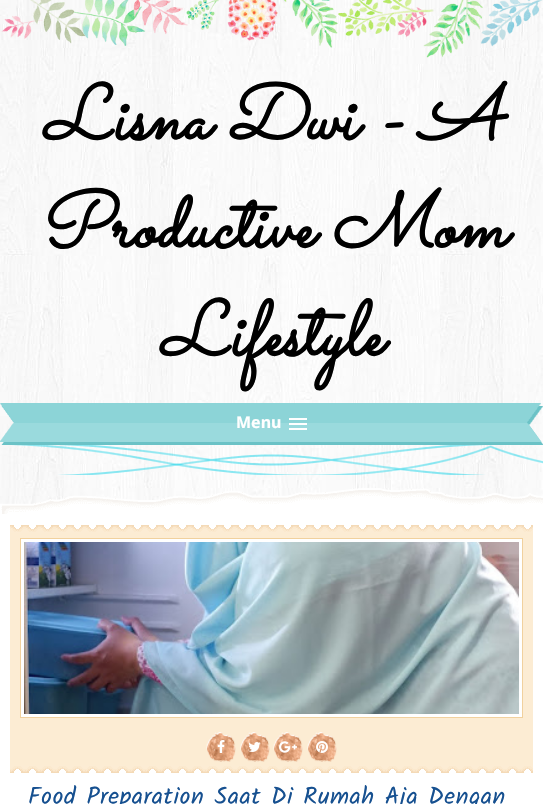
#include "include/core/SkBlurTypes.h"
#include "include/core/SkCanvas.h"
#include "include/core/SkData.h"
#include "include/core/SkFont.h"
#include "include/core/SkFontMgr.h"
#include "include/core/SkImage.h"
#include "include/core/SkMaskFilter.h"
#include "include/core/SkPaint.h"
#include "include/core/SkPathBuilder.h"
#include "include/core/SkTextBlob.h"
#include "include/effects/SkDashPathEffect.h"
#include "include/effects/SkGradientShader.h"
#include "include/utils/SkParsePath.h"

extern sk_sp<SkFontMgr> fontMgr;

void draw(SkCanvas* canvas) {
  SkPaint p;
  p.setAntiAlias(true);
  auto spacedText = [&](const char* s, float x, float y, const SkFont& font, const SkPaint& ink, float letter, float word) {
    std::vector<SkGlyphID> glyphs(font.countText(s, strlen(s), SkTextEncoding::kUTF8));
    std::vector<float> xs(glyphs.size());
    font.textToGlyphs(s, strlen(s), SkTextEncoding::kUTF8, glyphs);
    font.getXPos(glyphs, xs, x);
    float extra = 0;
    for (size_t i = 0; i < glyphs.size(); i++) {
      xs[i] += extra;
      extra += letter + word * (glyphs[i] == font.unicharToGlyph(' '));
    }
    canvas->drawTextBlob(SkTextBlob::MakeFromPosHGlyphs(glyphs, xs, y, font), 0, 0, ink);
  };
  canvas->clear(SK_ColorWHITE);
  canvas->drawImageRect(SkImages::DeferredFromEncodedData(SkData::MakeFromFileName("images/1.png")), SkRect::MakeLTRB(0, 0, 543, 504), SkSamplingOptions());
  canvas->drawImageRect(SkImages::DeferredFromEncodedData(SkData::MakeFromFileName("images/2.png")), SkRect::MakeLTRB(1, 0, 543, 58), SkSamplingOptions());
  canvas->drawImageRect(SkImages::DeferredFromEncodedData(SkData::MakeFromFileName("images/3.png")), SkRect::MakeLTRB(0, 403, 543, 445), SkSamplingOptions());
  p.setColor(SK_ColorWHITE);
  canvas->drawRect(SkRect::MakeLTRB(289, 418, 307, 420), p);
  canvas->drawRect(SkRect::MakeLTRB(289, 423, 307, 425), p);
  canvas->drawRect(SkRect::MakeLTRB(289, 428, 307, 430), p);
  canvas->drawImageRect(SkImages::DeferredFromEncodedData(SkData::MakeFromFileName("images/4.png")), SkRect::MakeLTRB(12, 445, 543, 475), SkSamplingOptions());
  canvas->drawImageRect(SkImages::DeferredFromEncodedData(SkData::MakeFromFileName("images/5.png")), SkRect::MakeLTRB(0, 488, 543, 514), SkSamplingOptions());
  p.setColor(SkColorSetRGB(252, 236, 211));
  canvas->drawRect(SkRect::MakeLTRB(10, 533, 533, 765), p);
  canvas->drawImageRect(SkImages::DeferredFromEncodedData(SkData::MakeFromFileName("images/6.png")), SkRect::MakeLTRB(10, 525, 533, 773), SkSamplingOptions());
  p.setColor(SK_ColorWHITE);
  canvas->drawRect(SkRect::MakeLTRB(20.5f, 538.5f, 522.5f, 717.5f), p);
  p.setStyle(SkPaint::kStroke_Style);
  p.setStrokeWidth(1);
  p.setColor(SkColorSetRGB(241, 209, 158));
  canvas->drawRect(SkRect::MakeLTRB(20.5f, 538.5f, 522.5f, 717.5f), p);
  canvas->drawImageRect(SkImages::DeferredFromEncodedData(SkData::MakeFromFileName("images/7.png")), SkRect::MakeLTRB(24, 542, 519, 714), SkSamplingOptions());
  canvas->drawImageRect(SkImages::DeferredFromEncodedData(SkData::MakeFromFileName("images/8.png")), SkRect::MakeLTRB(206, 732, 236, 762), SkSamplingOptions());
  canvas->drawImageRect(SkImages::DeferredFromEncodedData(SkData::MakeFromFileName("images/9.png")), SkRect::MakeLTRB(217, 740, 225, 753), SkSamplingOptions());
  canvas->drawImageRect(SkImages::DeferredFromEncodedData(SkData::MakeFromFileName("images/10.png")), SkRect::MakeLTRB(240, 732, 270, 762), SkSamplingOptions());
  canvas->drawImageRect(SkImages::DeferredFromEncodedData(SkData::MakeFromFileName("images/11.png")), SkRect::MakeLTRB(248, 742, 261, 752), SkSamplingOptions());
  canvas->drawImageRect(SkImages::DeferredFromEncodedData(SkData::MakeFromFileName("images/10.png")), SkRect::MakeLTRB(273, 732, 303, 762), SkSamplingOptions());
  canvas->drawImageRect(SkImages::DeferredFromEncodedData(SkData::MakeFromFileName("images/12.png")), SkRect::MakeLTRB(279, 741, 297, 753), SkSamplingOptions());
  canvas->drawImageRect(SkImages::DeferredFromEncodedData(SkData::MakeFromFileName("images/10.png")), SkRect::MakeLTRB(307, 732, 337, 762), SkSamplingOptions());
  canvas->drawImageRect(SkImages::DeferredFromEncodedData(SkData::MakeFromFileName("images/13.png")), SkRect::MakeLTRB(316, 741, 328, 753), SkSamplingOptions());
  SkFont font1(fontMgr->matchFamilyStyle("Sacramento", SkFontStyle::BoldItalic()), 77);
  font1.setSubpixel(true);
  p.setStyle(SkPaint::kFill_Style);
  p.setColor(SK_ColorBLACK);
  canvas->drawString("Lisna Dwi - A", 43, 139, font1, p);
  canvas->drawString("Productive Mom", 37, 247, font1, p);
  canvas->drawString("Lifestyle", 160, 355, font1, p);
  SkFont font2(fontMgr->matchFamilyStyle("Noto Sans", SkFontStyle::Bold()), 16);
  font2.setSubpixel(true);
  p.setColor(SK_ColorWHITE);
  canvas->drawString("Menu", 236, 428, font2, p);
  SkFont font3(fontMgr->matchFamilyStyle("Kalam", SkFontStyle::Normal()), 24);
  font3.setSubpixel(true);
  p.setColor(SkColorSetRGB(22, 80, 144));
  spacedText("Food Preparation Saat Di Rumah Aja Dengan", 28, 804, font3, p, 0.5f, 0);
}
